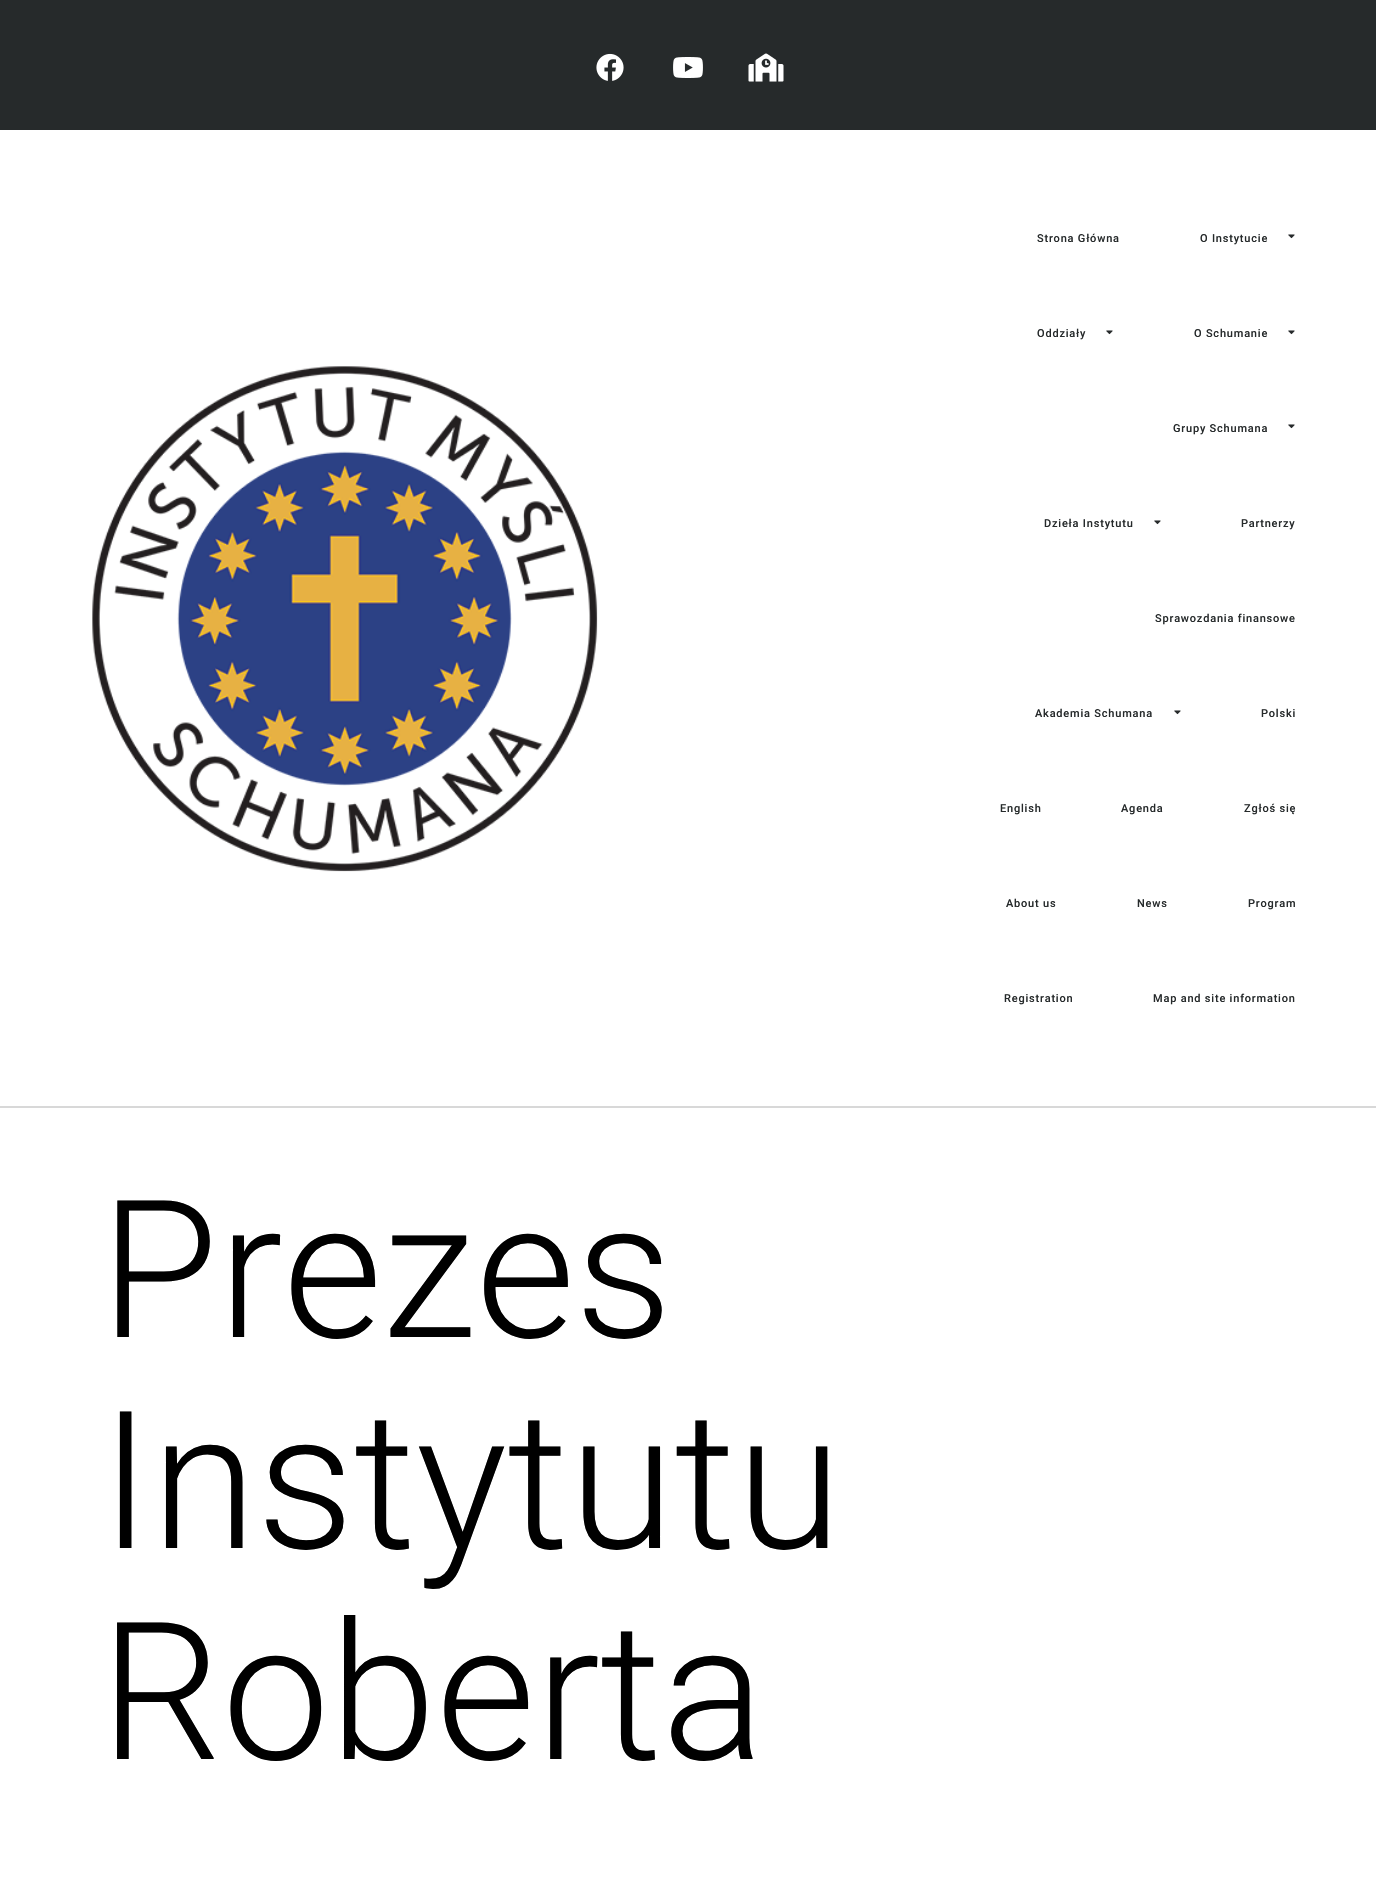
#include "include/core/SkBlurTypes.h"
#include "include/core/SkCanvas.h"
#include "include/core/SkData.h"
#include "include/core/SkFont.h"
#include "include/core/SkFontMgr.h"
#include "include/core/SkImage.h"
#include "include/core/SkMaskFilter.h"
#include "include/core/SkPaint.h"
#include "include/core/SkPathBuilder.h"
#include "include/core/SkTextBlob.h"
#include "include/effects/SkDashPathEffect.h"
#include "include/effects/SkGradientShader.h"
#include "include/utils/SkParsePath.h"

extern sk_sp<SkFontMgr> fontMgr;

void draw(SkCanvas* canvas) {
  SkPaint p;
  p.setAntiAlias(true);
  auto spacedText = [&](const char* s, float x, float y, const SkFont& font, const SkPaint& ink, float letter, float word) {
    std::vector<SkGlyphID> glyphs(font.countText(s, strlen(s), SkTextEncoding::kUTF8));
    std::vector<float> xs(glyphs.size());
    font.textToGlyphs(s, strlen(s), SkTextEncoding::kUTF8, glyphs);
    font.getXPos(glyphs, xs, x);
    float extra = 0;
    for (size_t i = 0; i < glyphs.size(); i++) {
      xs[i] += extra;
      extra += letter + word * (glyphs[i] == font.unicharToGlyph(' '));
    }
    canvas->drawTextBlob(SkTextBlob::MakeFromPosHGlyphs(glyphs, xs, y, font), 0, 0, ink);
  };
  canvas->clear(SK_ColorWHITE);
  p.setColor(SkColorSetRGB(38, 42, 43));
  canvas->drawRect(SkRect::MakeLTRB(0, 0, 1376, 130), p);
  canvas->drawImageRect(SkImages::DeferredFromEncodedData(SkData::MakeFromFileName("images/1.png")), SkRect::MakeLTRB(596, 53, 624, 81), SkSamplingOptions());
  canvas->drawImageRect(SkImages::DeferredFromEncodedData(SkData::MakeFromFileName("images/2.png")), SkRect::MakeLTRB(673, 57, 703, 78), SkSamplingOptions());
  canvas->drawImageRect(SkImages::DeferredFromEncodedData(SkData::MakeFromFileName("images/3.png")), SkRect::MakeLTRB(748, 53, 784, 82), SkSamplingOptions());
  p.setColor(SkColorSetRGB(216, 216, 216));
  canvas->drawRect(SkRect::MakeLTRB(0, 1106, 1376, 1108), p);
  canvas->drawImageRect(SkImages::DeferredFromEncodedData(SkData::MakeFromFileName("images/4.png")), SkRect::MakeLTRB(92, 366, 598, 872), SkSamplingOptions());
  canvas->drawImageRect(SkImages::DeferredFromEncodedData(SkData::MakeFromFileName("images/5.png")), SkRect::MakeLTRB(1288, 234, 1295, 239), SkSamplingOptions());
  canvas->drawImageRect(SkImages::DeferredFromEncodedData(SkData::MakeFromFileName("images/5.png")), SkRect::MakeLTRB(1106, 330, 1113, 335), SkSamplingOptions());
  canvas->drawImageRect(SkImages::DeferredFromEncodedData(SkData::MakeFromFileName("images/5.png")), SkRect::MakeLTRB(1288, 330, 1295, 335), SkSamplingOptions());
  canvas->drawImageRect(SkImages::DeferredFromEncodedData(SkData::MakeFromFileName("images/5.png")), SkRect::MakeLTRB(1288, 424, 1295, 429), SkSamplingOptions());
  canvas->drawImageRect(SkImages::DeferredFromEncodedData(SkData::MakeFromFileName("images/5.png")), SkRect::MakeLTRB(1154, 520, 1161, 525), SkSamplingOptions());
  canvas->drawImageRect(SkImages::DeferredFromEncodedData(SkData::MakeFromFileName("images/5.png")), SkRect::MakeLTRB(1174, 710, 1181, 715), SkSamplingOptions());
  SkFont font1(fontMgr->matchFamilyStyle("Roboto", SkFontStyle(500, SkFontStyle::kNormal_Width, SkFontStyle::kUpright_Slant)), 11);
  font1.setSubpixel(true);
  p.setColor(SkColorSetRGB(38, 42, 43));
  spacedText("Strona Główna", 1037, 242, font1, p, 0.8f, 0);
  spacedText("O Instytucie", 1200, 242, font1, p, 0.8f, 0);
  spacedText("Oddziały", 1037, 337, font1, p, 0.8f, 0);
  spacedText("O Schumanie", 1194, 337, font1, p, 0.8f, 0);
  spacedText("Grupy Schumana", 1173, 432, font1, p, 0.8f, 0);
  spacedText("Dzieła Instytutu", 1044, 527, font1, p, 0.8f, 0);
  spacedText("Partnerzy", 1241, 527, font1, p, 0.8f, 0);
  spacedText("Sprawozdania finansowe", 1155, 622, font1, p, 0.8f, 0);
  spacedText("Akademia Schumana", 1035, 717, font1, p, 0.8f, 0);
  spacedText("Polski", 1261, 717, font1, p, 0.8f, 0);
  spacedText("English", 1000, 812, font1, p, 0.8f, 0);
  spacedText("Agenda", 1121, 812, font1, p, 0.8f, 0);
  spacedText("Zgłoś się", 1244, 812, font1, p, 0.8f, 0);
  spacedText("About us", 1006, 907, font1, p, 0.8f, 0);
  spacedText("News", 1137, 907, font1, p, 0.8f, 0);
  spacedText("Program", 1248, 907, font1, p, 0.8f, 0);
  spacedText("Registration", 1004, 1002, font1, p, 0.8f, 0);
  spacedText("Map and site information", 1153, 1002, font1, p, 0.8f, 0);
  SkFont font2(fontMgr->matchFamilyStyle("Roboto", SkFontStyle(300, SkFontStyle::kNormal_Width, SkFontStyle::kUpright_Slant)), 192);
  font2.setSubpixel(true);
  p.setColor(SK_ColorBLACK);
  canvas->drawString("Prezes", 100, 1337, font2, p);
  canvas->drawString("Instytutu", 100, 1548, font2, p);
  canvas->drawString("Roberta", 100, 1759, font2, p);
}
